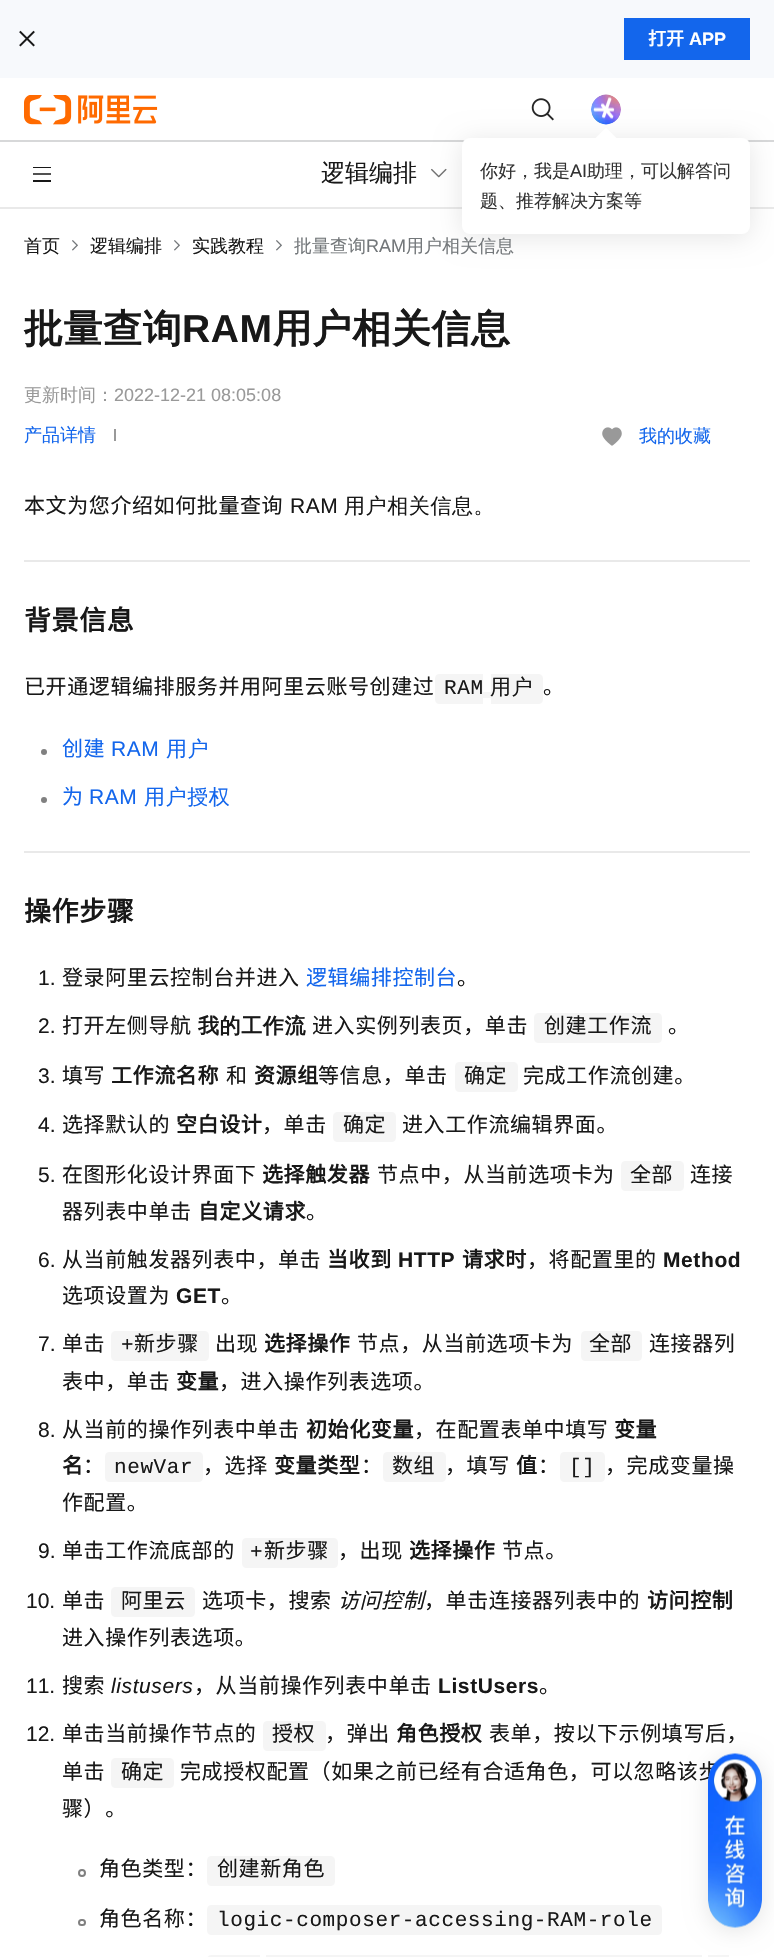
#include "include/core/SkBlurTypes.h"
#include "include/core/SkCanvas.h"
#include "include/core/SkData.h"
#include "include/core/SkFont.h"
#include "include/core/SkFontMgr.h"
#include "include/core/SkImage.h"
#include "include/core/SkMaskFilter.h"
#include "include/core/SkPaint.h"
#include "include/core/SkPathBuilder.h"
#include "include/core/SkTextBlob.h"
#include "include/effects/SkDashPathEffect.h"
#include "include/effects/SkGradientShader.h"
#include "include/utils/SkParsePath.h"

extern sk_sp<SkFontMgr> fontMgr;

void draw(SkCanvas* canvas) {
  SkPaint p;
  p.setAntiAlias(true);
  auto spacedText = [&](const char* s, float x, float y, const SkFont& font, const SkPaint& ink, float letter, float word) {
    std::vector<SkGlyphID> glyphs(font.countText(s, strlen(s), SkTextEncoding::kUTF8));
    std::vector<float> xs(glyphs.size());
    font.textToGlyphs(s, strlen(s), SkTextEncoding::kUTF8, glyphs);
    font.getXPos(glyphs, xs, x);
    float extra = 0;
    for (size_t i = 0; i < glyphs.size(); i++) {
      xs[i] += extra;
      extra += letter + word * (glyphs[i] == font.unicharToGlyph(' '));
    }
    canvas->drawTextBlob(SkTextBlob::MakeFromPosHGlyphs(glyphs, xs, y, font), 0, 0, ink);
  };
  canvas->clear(SK_ColorWHITE);
  p.setColor(SkColorSetRGB(247, 249, 252));
  canvas->drawRect(SkRect::MakeLTRB(0, 0, 774, 78), p);
  canvas->drawImageRect(SkImages::DeferredFromEncodedData(SkData::MakeFromFileName("images/1.png")), SkRect::MakeLTRB(19, 30, 35, 47), SkSamplingOptions());
  p.setColor(SkColorSetRGB(19, 102, 236));
  canvas->drawRect(SkRect::MakeLTRB(624, 18, 750, 60), p);
  p.setColor(SkColorSetRGB(215, 216, 217));
  canvas->drawRect(SkRect::MakeLTRB(0, 140, 774, 142), p);
  canvas->drawImageRect(SkImages::DeferredFromEncodedData(SkData::MakeFromFileName("images/2.png")), SkRect::MakeLTRB(24, 95, 158, 125), SkSamplingOptions());
  canvas->drawImageRect(SkImages::DeferredFromEncodedData(SkData::MakeFromFileName("images/3.png")), SkRect::MakeLTRB(531, 98, 554, 121), SkSamplingOptions());
  canvas->drawImageRect(SkImages::DeferredFromEncodedData(SkData::MakeFromFileName("images/4.png")), SkRect::MakeLTRB(591, 94, 621, 125), SkSamplingOptions());
  canvas->drawImageRect(SkImages::DeferredFromEncodedData(SkData::MakeFromFileName("images/5.png")), SkRect::MakeLTRB(593, 97, 615, 119), SkSamplingOptions());
  p.setColor(SkColorSetRGB(233, 233, 233));
  canvas->drawRect(SkRect::MakeLTRB(0, 207, 774, 209), p);
  canvas->drawImageRect(SkImages::DeferredFromEncodedData(SkData::MakeFromFileName("images/7.png")), SkRect::MakeLTRB(431, 168, 447, 178), SkSamplingOptions());
  p.setColor(SkColorSetARGB(26, 0, 0, 0));
  p.setMaskFilter(SkMaskFilter::MakeBlur(kNormal_SkBlurStyle, 13.5f));
  canvas->drawRoundRect(SkRect::MakeLTRB(462, 141, 750, 237), 8, 8, p);
  p.setMaskFilter(nullptr);
  p.setColor(SK_ColorWHITE);
  canvas->drawRoundRect(SkRect::MakeLTRB(462, 138, 750, 234), 8, 8, p);
  canvas->drawPath(SkPathBuilder().moveTo(606, 127.5f).lineTo(616.5f, 138).lineTo(606, 148.5f).lineTo(595.5f, 138).close().detach(), p);
  canvas->drawImageRect(SkImages::DeferredFromEncodedData(SkData::MakeFromFileName("images/6.png")), SkRect::MakeLTRB(33, 167, 51, 182), SkSamplingOptions());
  canvas->drawImageRect(SkImages::DeferredFromEncodedData(SkData::MakeFromFileName("images/8.png")), SkRect::MakeLTRB(72, 240, 78, 251), SkSamplingOptions());
  canvas->drawImageRect(SkImages::DeferredFromEncodedData(SkData::MakeFromFileName("images/8.png")), SkRect::MakeLTRB(174, 240, 180, 251), SkSamplingOptions());
  canvas->drawImageRect(SkImages::DeferredFromEncodedData(SkData::MakeFromFileName("images/8.png")), SkRect::MakeLTRB(276, 240, 282, 251), SkSamplingOptions());
  p.setColor(SkColorSetRGB(153, 153, 153));
  canvas->drawRect(SkRect::MakeLTRB(114, 429, 116, 441), p);
  canvas->drawImageRect(SkImages::DeferredFromEncodedData(SkData::MakeFromFileName("images/9.png")), SkRect::MakeLTRB(602, 427, 622, 446), SkSamplingOptions());
  p.setColor(SkColorSetRGB(233, 233, 233));
  canvas->drawRect(SkRect::MakeLTRB(24, 560, 750, 562), p);
  p.setColor(SkColorSetRGB(245, 245, 245));
  canvas->drawPath(SkPathBuilder().moveTo(439.5f, 674).lineTo(444, 674).lineTo(444, 704).lineTo(439.5f, 704).cubicTo(437, 704, 435, 702, 435, 699.5f).lineTo(435, 678.5f).cubicTo(435, 676, 437, 674, 439.5f, 674).close().detach(), p);
  canvas->drawRect(SkRect::MakeLTRB(444, 674, 483, 704), p);
  canvas->drawRect(SkRect::MakeLTRB(483, 692, 491, 698), p);
  canvas->drawRect(SkRect::MakeLTRB(491, 674, 533, 704), p);
  canvas->drawPath(SkPathBuilder().moveTo(533, 674).lineTo(538, 674).cubicTo(541, 674, 543, 676, 543, 679).lineTo(543, 699).cubicTo(543, 702, 541, 704, 538, 704).lineTo(533, 704).close().detach(), p);
  p.setColor(SkColorSetRGB(128, 128, 128));
  canvas->drawCircle(44, 752, 3, p);
  canvas->drawCircle(44, 800, 3, p);
  p.setColor(SkColorSetRGB(233, 233, 233));
  canvas->drawRect(SkRect::MakeLTRB(24, 851, 750, 853), p);
  p.setColor(SkColorSetRGB(245, 245, 245));
  canvas->drawPath(SkPathBuilder().moveTo(539, 1013).lineTo(545, 1013).lineTo(545, 1043).lineTo(539, 1043).cubicTo(536, 1043, 534, 1041, 534, 1038).lineTo(534, 1018).cubicTo(534, 1015, 536, 1013, 539, 1013).close().detach(), p);
  canvas->drawRect(SkRect::MakeLTRB(545, 1013, 653, 1043), p);
  canvas->drawPath(SkPathBuilder().moveTo(653, 1013).lineTo(657.5f, 1013).cubicTo(660, 1013, 662, 1015, 662, 1017.5f).lineTo(662, 1038.5f).cubicTo(662, 1041, 660, 1043, 657.5f, 1043).lineTo(653, 1043).close().detach(), p);
  canvas->drawPath(SkPathBuilder().moveTo(459.5f, 1062).lineTo(464, 1062).lineTo(464, 1092).lineTo(459.5f, 1092).cubicTo(457, 1092, 455, 1090, 455, 1087.5f).lineTo(455, 1066.5f).cubicTo(455, 1064, 457, 1062, 459.5f, 1062).close().detach(), p);
  canvas->drawRect(SkRect::MakeLTRB(464, 1062, 507, 1092), p);
  canvas->drawPath(SkPathBuilder().moveTo(507, 1062).lineTo(513, 1062).cubicTo(516, 1062, 518, 1064, 518, 1067).lineTo(518, 1087).cubicTo(518, 1090, 516, 1092, 513, 1092).lineTo(507, 1092).close().detach(), p);
  canvas->drawPath(SkPathBuilder().moveTo(338, 1112).lineTo(344, 1112).lineTo(344, 1142).lineTo(338, 1142).cubicTo(335, 1142, 333, 1140, 333, 1137).lineTo(333, 1117).cubicTo(333, 1114, 335, 1112, 338, 1112).close().detach(), p);
  canvas->drawRect(SkRect::MakeLTRB(344, 1112, 387, 1142), p);
  canvas->drawPath(SkPathBuilder().moveTo(387, 1112).lineTo(391.5f, 1112).cubicTo(394, 1112, 396, 1114, 396, 1116.5f).lineTo(396, 1137.5f).cubicTo(396, 1140, 394, 1142, 391.5f, 1142).lineTo(387, 1142).close().detach(), p);
  canvas->drawPath(SkPathBuilder().moveTo(625.5f, 1161).lineTo(630, 1161).lineTo(630, 1191).lineTo(625.5f, 1191).cubicTo(623, 1191, 621, 1189, 621, 1186.5f).lineTo(621, 1165.5f).cubicTo(621, 1163, 623, 1161, 625.5f, 1161).close().detach(), p);
  canvas->drawRect(SkRect::MakeLTRB(630, 1161, 674, 1191), p);
  canvas->drawPath(SkPathBuilder().moveTo(674, 1161).lineTo(679, 1161).cubicTo(682, 1161, 684, 1163, 684, 1166).lineTo(684, 1186).cubicTo(684, 1189, 682, 1191, 679, 1191).lineTo(674, 1191).close().detach(), p);
  canvas->drawPath(SkPathBuilder().moveTo(116, 1331).lineTo(122, 1331).lineTo(122, 1361).lineTo(116, 1361).cubicTo(113, 1361, 111, 1359, 111, 1356).lineTo(111, 1336).cubicTo(111, 1333, 113, 1331, 116, 1331).close().detach(), p);
  canvas->drawRect(SkRect::MakeLTRB(122, 1331, 200, 1361), p);
  canvas->drawPath(SkPathBuilder().moveTo(200, 1331).lineTo(204.5f, 1331).cubicTo(207, 1331, 209, 1333, 209, 1335.5f).lineTo(209, 1356.5f).cubicTo(209, 1359, 207, 1361, 204.5f, 1361).lineTo(200, 1361).close().detach(), p);
  canvas->drawPath(SkPathBuilder().moveTo(585.5f, 1331).lineTo(590, 1331).lineTo(590, 1361).lineTo(585.5f, 1361).cubicTo(583, 1361, 581, 1359, 581, 1356.5f).lineTo(581, 1335.5f).cubicTo(581, 1333, 583, 1331, 585.5f, 1331).close().detach(), p);
  canvas->drawRect(SkRect::MakeLTRB(590, 1331, 633, 1361), p);
  canvas->drawPath(SkPathBuilder().moveTo(633, 1331).lineTo(637.5f, 1331).cubicTo(640, 1331, 642, 1333, 642, 1335.5f).lineTo(642, 1356.5f).cubicTo(642, 1359, 640, 1361, 637.5f, 1361).lineTo(633, 1361).close().detach(), p);
  canvas->drawPath(SkPathBuilder().moveTo(109.5f, 1452).lineTo(114, 1452).lineTo(114, 1482).lineTo(109.5f, 1482).cubicTo(107, 1482, 105, 1480, 105, 1477.5f).lineTo(105, 1456.5f).cubicTo(105, 1454, 107, 1452, 109.5f, 1452).close().detach(), p);
  canvas->drawRect(SkRect::MakeLTRB(114, 1452, 194, 1482), p);
  canvas->drawPath(SkPathBuilder().moveTo(194, 1452).lineTo(198.5f, 1452).cubicTo(201, 1452, 203, 1454, 203, 1456.5f).lineTo(203, 1477.5f).cubicTo(203, 1480, 201, 1482, 198.5f, 1482).lineTo(194, 1482).close().detach(), p);
  canvas->drawPath(SkPathBuilder().moveTo(387.5f, 1452).lineTo(392, 1452).lineTo(392, 1482).lineTo(387.5f, 1482).cubicTo(385, 1482, 383, 1480, 383, 1477.5f).lineTo(383, 1456.5f).cubicTo(383, 1454, 385, 1452, 387.5f, 1452).close().detach(), p);
  canvas->drawRect(SkRect::MakeLTRB(392, 1452, 435, 1482), p);
  canvas->drawPath(SkPathBuilder().moveTo(435, 1452).lineTo(441, 1452).cubicTo(444, 1452, 446, 1454, 446, 1457).lineTo(446, 1477).cubicTo(446, 1480, 444, 1482, 441, 1482).lineTo(435, 1482).close().detach(), p);
  canvas->drawPath(SkPathBuilder().moveTo(564.5f, 1452).lineTo(569, 1452).lineTo(569, 1482).lineTo(564.5f, 1482).cubicTo(562, 1482, 560, 1480, 560, 1477.5f).lineTo(560, 1456.5f).cubicTo(560, 1454, 562, 1452, 564.5f, 1452).close().detach(), p);
  canvas->drawRect(SkRect::MakeLTRB(569, 1452, 596, 1482), p);
  canvas->drawPath(SkPathBuilder().moveTo(596, 1452).lineTo(600.5f, 1452).cubicTo(603, 1452, 605, 1454, 605, 1456.5f).lineTo(605, 1477.5f).cubicTo(605, 1480, 603, 1482, 600.5f, 1482).lineTo(596, 1482).close().detach(), p);
  canvas->drawPath(SkPathBuilder().moveTo(246.5f, 1538).lineTo(251, 1538).lineTo(251, 1568).lineTo(246.5f, 1568).cubicTo(244, 1568, 242, 1566, 242, 1563.5f).lineTo(242, 1542.5f).cubicTo(242, 1540, 244, 1538, 246.5f, 1538).close().detach(), p);
  canvas->drawRect(SkRect::MakeLTRB(251, 1538, 329, 1568), p);
  canvas->drawPath(SkPathBuilder().moveTo(329, 1538).lineTo(333.5f, 1538).cubicTo(336, 1538, 338, 1540, 338, 1542.5f).lineTo(338, 1563.5f).cubicTo(338, 1566, 336, 1568, 333.5f, 1568).lineTo(329, 1568).close().detach(), p);
  canvas->drawPath(SkPathBuilder().moveTo(116, 1587).lineTo(122, 1587).lineTo(122, 1617).lineTo(116, 1617).cubicTo(113, 1617, 111, 1615, 111, 1612).lineTo(111, 1592).cubicTo(111, 1589, 113, 1587, 116, 1587).close().detach(), p);
  canvas->drawRect(SkRect::MakeLTRB(122, 1587, 186, 1617), p);
  canvas->drawPath(SkPathBuilder().moveTo(186, 1587).lineTo(190.5f, 1587).cubicTo(193, 1587, 195, 1589, 195, 1591.5f).lineTo(195, 1612.5f).cubicTo(195, 1615, 193, 1617, 190.5f, 1617).lineTo(186, 1617).close().detach(), p);
  canvas->drawPath(SkPathBuilder().moveTo(267.5f, 1721).lineTo(272, 1721).lineTo(272, 1751).lineTo(267.5f, 1751).cubicTo(265, 1751, 263, 1749, 263, 1746.5f).lineTo(263, 1725.5f).cubicTo(263, 1723, 265, 1721, 267.5f, 1721).close().detach(), p);
  canvas->drawRect(SkRect::MakeLTRB(272, 1721, 315, 1751), p);
  canvas->drawPath(SkPathBuilder().moveTo(315, 1721).lineTo(321, 1721).cubicTo(324, 1721, 326, 1723, 326, 1726).lineTo(326, 1746).cubicTo(326, 1749, 324, 1751, 321, 1751).lineTo(315, 1751).close().detach(), p);
  canvas->drawPath(SkPathBuilder().moveTo(116, 1758).lineTo(122, 1758).lineTo(122, 1788).lineTo(116, 1788).cubicTo(113, 1788, 111, 1786, 111, 1783).lineTo(111, 1763).cubicTo(111, 1760, 113, 1758, 116, 1758).close().detach(), p);
  canvas->drawRect(SkRect::MakeLTRB(122, 1758, 164, 1788), p);
  canvas->drawPath(SkPathBuilder().moveTo(164, 1758).lineTo(169, 1758).cubicTo(172, 1758, 174, 1760, 174, 1763).lineTo(174, 1783).cubicTo(174, 1786, 172, 1788, 169, 1788).lineTo(164, 1788).close().detach(), p);
  p.setStyle(SkPaint::kStroke_Style);
  p.setStrokeWidth(2);
  p.setColor(SkColorSetRGB(128, 128, 128));
  canvas->drawCircle(82, 1873, 3, p);
  p.setStyle(SkPaint::kFill_Style);
  p.setColor(SkColorSetRGB(245, 245, 245));
  canvas->drawPath(SkPathBuilder().moveTo(211.5f, 1856).lineTo(216, 1856).lineTo(216, 1886).lineTo(211.5f, 1886).cubicTo(209, 1886, 207, 1884, 207, 1881.5f).lineTo(207, 1860.5f).cubicTo(207, 1858, 209, 1856, 211.5f, 1856).close().detach(), p);
  canvas->drawRect(SkRect::MakeLTRB(216, 1856, 324, 1886), p);
  canvas->drawPath(SkPathBuilder().moveTo(324, 1856).lineTo(330, 1856).cubicTo(333, 1856, 335, 1858, 335, 1861).lineTo(335, 1881).cubicTo(335, 1884, 333, 1886, 330, 1886).lineTo(324, 1886).close().detach(), p);
  p.setStyle(SkPaint::kStroke_Style);
  p.setColor(SkColorSetRGB(128, 128, 128));
  canvas->drawRoundRect(SkRect::MakeLTRB(79, 1920, 85, 1925), 2.5f, 2.5f, p);
  p.setStyle(SkPaint::kFill_Style);
  p.setColor(SkColorSetRGB(245, 245, 245));
  canvas->drawPath(SkPathBuilder().moveTo(211.5f, 1905).lineTo(216, 1905).lineTo(216, 1935).lineTo(211.5f, 1935).cubicTo(209, 1935, 207, 1933, 207, 1930.5f).lineTo(207, 1909.5f).cubicTo(207, 1907, 209, 1905, 211.5f, 1905).close().detach(), p);
  canvas->drawRect(SkRect::MakeLTRB(216, 1905, 653, 1935), p);
  canvas->drawPath(SkPathBuilder().moveTo(653, 1905).lineTo(657.5f, 1905).cubicTo(660, 1905, 662, 1907, 662, 1909.5f).lineTo(662, 1930.5f).cubicTo(662, 1933, 660, 1935, 657.5f, 1935).lineTo(653, 1935).close().detach(), p);
  canvas->drawPath(SkPathBuilder().moveTo(211.5f, 1955).lineTo(216, 1955).lineTo(216, 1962).lineTo(211.5f, 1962).cubicTo(209, 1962, 207, 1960, 207, 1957.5f).lineTo(207, 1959.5f).cubicTo(207, 1957, 209, 1955, 211.5f, 1955).close().detach(), p);
  canvas->drawRect(SkRect::MakeLTRB(216, 1955, 260, 1957), p);
  canvas->drawRect(SkRect::MakeLTRB(266, 1955, 702, 1957), p);
  canvas->drawRect(SkRect::MakeLTRB(708, 1955, 729, 1957), p);
  p.setColor(SkColorSetARGB(26, 0, 0, 0));
  p.setMaskFilter(SkMaskFilter::MakeBlur(kNormal_SkBlurStyle, 11));
  canvas->drawRoundRect(SkRect::MakeLTRB(708, 1757, 762, 1931), 27, 27, p);
  p.setMaskFilter(nullptr);
  SkFont font1(fontMgr->matchFamilyStyle("Noto Sans CJK SC", SkFontStyle::Bold()), 18);
  font1.setSubpixel(true);
  p.setColor(SK_ColorWHITE);
  canvas->drawString("打开", 648, 45, font1, p);
  SkFont font2(fontMgr->matchFamilyStyle("Liberation Sans", SkFontStyle::Bold()), 18);
  font2.setSubpixel(true);
  canvas->drawString("APP", 689, 45, font2, p);
  SkFont font3(fontMgr->matchFamilyStyle("WenQuanYi Zen Hei", SkFontStyle(500, SkFontStyle::kNormal_Width, SkFontStyle::kUpright_Slant)), 18);
  font3.setSubpixel(true);
  p.setColor(SkColorSetRGB(51, 51, 51));
  canvas->drawString("你好，我是", 480, 177, font3, p);
  SkFont font4(fontMgr->matchFamilyStyle("Liberation Sans", SkFontStyle::Normal()), 18);
  font4.setSubpixel(true);
  canvas->drawString("AI", 570, 177, font4, p);
  canvas->drawString("助理，可以解答问", 587, 177, font3, p);
  canvas->drawString("题、推荐解决方案等", 480, 207, font3, p);
  SkFont font5(fontMgr->matchFamilyStyle("WenQuanYi Zen Hei", SkFontStyle(500, SkFontStyle::kNormal_Width, SkFontStyle::kUpright_Slant)), 24);
  font5.setSubpixel(true);
  p.setColor(SkColorSetRGB(24, 24, 24));
  canvas->drawString("逻辑编排", 321, 181, font5, p);
  canvas->drawString("首页", 24, 252, font3, p);
  canvas->drawString("逻辑编排", 90, 252, font3, p);
  canvas->drawString("实践教程", 192, 252, font3, p);
  p.setColor(SkColorSetRGB(115, 119, 122));
  canvas->drawString("批量查询", 294, 252, font3, p);
  canvas->drawString("RAM", 366, 252, font4, p);
  canvas->drawString("用户相关信息", 406, 252, font3, p);
  SkFont font6(fontMgr->matchFamilyStyle("WenQuanYi Zen Hei", SkFontStyle::Bold()), 39);
  font6.setSubpixel(true);
  p.setColor(SkColorSetRGB(24, 24, 24));
  spacedText("批量查询", 24, 342, font6, p, 0.6f, 0);
  SkFont font7(fontMgr->matchFamilyStyle("Liberation Sans", SkFontStyle::Bold()), 39);
  font7.setSubpixel(true);
  spacedText("RAM", 182, 342, font7, p, 0.6f, 0);
  spacedText("用户相关信息", 273, 342, font6, p, 0.6f, 0);
  p.setColor(SkColorSetRGB(153, 153, 153));
  canvas->drawString("更新时间：", 24, 401, font3, p);
  canvas->drawString("2022-12-21 08:05:08", 114, 401, font4, p);
  p.setColor(SkColorSetRGB(19, 102, 236));
  canvas->drawString("产品详情", 24, 441, font3, p);
  canvas->drawString("我的收藏", 639, 442, font3, p);
  SkFont font8(fontMgr->matchFamilyStyle("Noto Sans CJK SC", SkFontStyle::Normal()), 21);
  font8.setSubpixel(true);
  p.setColor(SkColorSetRGB(24, 24, 24));
  spacedText("本文为您介绍如何批量查询", 24, 513, font8, p, 0.6f, 0);
  SkFont font9(fontMgr->matchFamilyStyle("Liberation Sans", SkFontStyle::Normal()), 21);
  font9.setSubpixel(true);
  spacedText("RAM", 290, 513, font9, p, 0.6f, 0);
  SkFont font10(fontMgr->matchFamilyStyle("WenQuanYi Zen Hei", SkFontStyle(500, SkFontStyle::kNormal_Width, SkFontStyle::kUpright_Slant)), 21);
  font10.setSubpixel(true);
  spacedText("用户相关信息。", 344, 513, font10, p, 0.6f, 0);
  SkFont font11(fontMgr->matchFamilyStyle("Noto Sans CJK SC", SkFontStyle::Bold()), 27);
  font11.setSubpixel(true);
  spacedText("背景信息", 24, 630, font11, p, 0.6f, 0);
  spacedText("已开通逻辑编排服务并用阿里云账号创建过", 24, 694, font8, p, 0.6f, 0);
  SkFont font12(fontMgr->matchFamilyStyle("Liberation Mono", SkFontStyle::Normal()), 21);
  font12.setSubpixel(true);
  spacedText("RAM", 444, 694, font12, p, 0.6f, 0);
  spacedText("用户", 490, 694, font10, p, 0.6f, 0);
  spacedText("。", 543, 694, font8, p, 0.6f, 0);
  p.setColor(SkColorSetRGB(19, 102, 236));
  spacedText("创建", 62, 756, font8, p, 0.6f, 0);
  spacedText("RAM", 111, 756, font9, p, 0.6f, 0);
  spacedText("用户", 166, 756, font10, p, 0.6f, 0);
  spacedText("为", 62, 804, font8, p, 0.6f, 0);
  spacedText("RAM", 89, 804, font9, p, 0.6f, 0);
  spacedText("用户授权", 144, 804, font10, p, 0.6f, 0);
  p.setColor(SkColorSetRGB(24, 24, 24));
  spacedText("操作步骤", 24, 921, font11, p, 0.6f, 0);
  canvas->drawString("1.", 38, 985, font9, p);
  spacedText("登录阿里云控制台并进入", 62, 985, font8, p, 0.6f, 0);
  p.setColor(SkColorSetRGB(19, 102, 236));
  spacedText("逻辑编排控制台", 306, 985, font8, p, 0.6f, 0);
  p.setColor(SkColorSetRGB(24, 24, 24));
  spacedText("。", 457, 985, font8, p, 0.6f, 0);
  canvas->drawString("2.", 38, 1033, font9, p);
  spacedText("打开左侧导航", 62, 1033, font8, p, 0.6f, 0);
  SkFont font13(fontMgr->matchFamilyStyle("WenQuanYi Zen Hei", SkFontStyle::Bold()), 21);
  font13.setSubpixel(true);
  spacedText("我的工作流", 198, 1033, font13, p, 0.6f, 0);
  spacedText("进入实例列表页，单击", 312, 1033, font8, p, 0.6f, 0);
  spacedText("创建工作流", 544, 1033, font8, p, 0.6f, 0);
  spacedText("。", 668, 1033, font8, p, 0.6f, 0);
  canvas->drawString("3.", 38, 1083, font9, p);
  spacedText("填写", 62, 1083, font8, p, 0.6f, 0);
  SkFont font14(fontMgr->matchFamilyStyle("Noto Sans CJK SC", SkFontStyle::Bold()), 21);
  font14.setSubpixel(true);
  spacedText("工作流名称", 111, 1083, font14, p, 0.6f, 0);
  spacedText("和", 226, 1083, font8, p, 0.6f, 0);
  spacedText("资源组", 254, 1083, font14, p, 0.6f, 0);
  spacedText("等信息，单击", 318, 1083, font8, p, 0.6f, 0);
  spacedText("确定", 464, 1083, font8, p, 0.6f, 0);
  spacedText("完成工作流创建。", 523, 1083, font8, p, 0.6f, 0);
  canvas->drawString("4.", 38, 1132, font9, p);
  spacedText("选择默认的", 62, 1132, font8, p, 0.6f, 0);
  spacedText("空白设计", 176, 1132, font14, p, 0.6f, 0);
  spacedText("，单击", 262, 1132, font8, p, 0.6f, 0);
  spacedText("确定", 343, 1132, font8, p, 0.6f, 0);
  spacedText("进入工作流编辑界面。", 402, 1132, font8, p, 0.6f, 0);
  canvas->drawString("5.", 38, 1182, font9, p);
  spacedText("在图形化设计界面下", 62, 1182, font8, p, 0.6f, 0);
  spacedText("选择触发器", 262, 1182, font14, p, 0.6f, 0);
  spacedText("节点中，从当前选项卡为", 377, 1182, font8, p, 0.6f, 0);
  spacedText("全部", 630, 1182, font8, p, 0.6f, 0);
  spacedText("连接", 690, 1182, font8, p, 0.6f, 0);
  spacedText("器列表中单击", 62, 1219, font8, p, 0.6f, 0);
  spacedText("自定义请求", 198, 1219, font14, p, 0.6f, 0);
  spacedText("。", 306, 1219, font8, p, 0.6f, 0);
  canvas->drawString("6.", 38, 1267, font9, p);
  spacedText("从当前触发器列表中，单击", 62, 1267, font8, p, 0.6f, 0);
  spacedText("当收到", 327, 1267, font14, p, 0.6f, 0);
  SkFont font15(fontMgr->matchFamilyStyle("Liberation Sans", SkFontStyle::Bold()), 21);
  font15.setSubpixel(true);
  spacedText("HTTP", 398, 1267, font15, p, 0.6f, 0);
  spacedText("请求时", 462, 1267, font14, p, 0.6f, 0);
  spacedText("，将配置里的", 527, 1267, font8, p, 0.6f, 0);
  spacedText("Method", 663, 1267, font15, p, 0.6f, 0);
  spacedText("选项设置为", 62, 1303, font8, p, 0.6f, 0);
  spacedText("GET", 176, 1303, font15, p, 0.6f, 0);
  spacedText("。", 221, 1303, font8, p, 0.6f, 0);
  canvas->drawString("7.", 38, 1351, font9, p);
  spacedText("单击", 62, 1351, font8, p, 0.6f, 0);
  spacedText("+", 121, 1351, font12, p, 0.6f, 0);
  spacedText("新步骤", 134, 1351, font8, p, 0.6f, 0);
  spacedText("出现", 215, 1351, font8, p, 0.6f, 0);
  spacedText("选择操作", 264, 1351, font14, p, 0.6f, 0);
  spacedText("节点，从当前选项卡为", 357, 1351, font8, p, 0.6f, 0);
  spacedText("全部", 589, 1351, font8, p, 0.6f, 0);
  spacedText("连接器列", 649, 1351, font8, p, 0.6f, 0);
  spacedText("表中，单击", 62, 1389, font8, p, 0.6f, 0);
  spacedText("变量", 176, 1389, font14, p, 0.6f, 0);
  spacedText("，进入操作列表选项。", 219, 1389, font8, p, 0.6f, 0);
  canvas->drawString("8.", 38, 1437, font9, p);
  spacedText("从当前的操作列表中单击", 62, 1437, font8, p, 0.6f, 0);
  spacedText("初始化变量", 306, 1437, font14, p, 0.6f, 0);
  spacedText("，在配置表单中填写", 414, 1437, font8, p, 0.6f, 0);
  spacedText("变量", 614, 1437, font14, p, 0.6f, 0);
  spacedText("名", 62, 1473, font14, p, 0.6f, 0);
  spacedText("：", 83, 1473, font8, p, 0.6f, 0);
  spacedText("newVar", 114, 1473, font12, p, 0.6f, 0);
  spacedText("，选择", 203, 1473, font8, p, 0.6f, 0);
  spacedText("变量类型", 274, 1473, font14, p, 0.6f, 0);
  spacedText("：", 361, 1473, font8, p, 0.6f, 0);
  spacedText("数组", 392, 1473, font8, p, 0.6f, 0);
  spacedText("，填写", 445, 1473, font8, p, 0.6f, 0);
  spacedText("值", 516, 1473, font14, p, 0.6f, 0);
  spacedText("：", 538, 1473, font8, p, 0.6f, 0);
  spacedText("[]", 569, 1473, font12, p, 0.6f, 0);
  spacedText("，完成变量操", 605, 1473, font8, p, 0.6f, 0);
  spacedText("作配置。", 62, 1510, font8, p, 0.6f, 0);
  canvas->drawString("9.", 38, 1558, font9, p);
  spacedText("单击工作流底部的", 62, 1558, font8, p, 0.6f, 0);
  spacedText("+", 250, 1558, font12, p, 0.6f, 0);
  spacedText("新步骤", 264, 1558, font8, p, 0.6f, 0);
  spacedText("，出现", 338, 1558, font8, p, 0.6f, 0);
  spacedText("选择操作", 409, 1558, font14, p, 0.6f, 0);
  spacedText("节点。", 502, 1558, font8, p, 0.6f, 0);
  canvas->drawString("10.", 26, 1608, font9, p);
  spacedText("单击", 62, 1608, font8, p, 0.6f, 0);
  spacedText("阿里云", 121, 1608, font8, p, 0.6f, 0);
  spacedText("选项卡，搜索", 202, 1608, font8, p, 0.6f, 0);
  SkFont font16(fontMgr->matchFamilyStyle("Noto Sans CJK SC", SkFontStyle::Italic()), 21);
  font16.setSubpixel(true);
  spacedText("访问控制", 338, 1608, font16, p, 0.6f, 0);
  spacedText("，单击连接器列表中的", 424, 1608, font8, p, 0.6f, 0);
  spacedText("访问控制", 647, 1608, font14, p, 0.6f, 0);
  spacedText("进入操作列表选项。", 62, 1645, font8, p, 0.6f, 0);
  canvas->drawString("11.", 26, 1693, font9, p);
  spacedText("搜索", 62, 1693, font8, p, 0.6f, 0);
  SkFont font17(fontMgr->matchFamilyStyle("Liberation Sans", SkFontStyle::Italic()), 21);
  font17.setSubpixel(true);
  spacedText("listusers", 111, 1693, font17, p, 0.6f, 0);
  spacedText("，从当前操作列表中单击", 194, 1693, font8, p, 0.6f, 0);
  spacedText("ListUsers", 438, 1693, font15, p, 0.6f, 0);
  spacedText("。", 539, 1693, font8, p, 0.6f, 0);
  canvas->drawString("12.", 26, 1741, font9, p);
  spacedText("单击当前操作节点的", 62, 1741, font8, p, 0.6f, 0);
  spacedText("授权", 272, 1741, font8, p, 0.6f, 0);
  spacedText("，弹出", 325, 1741, font8, p, 0.6f, 0);
  spacedText("角色授权", 396, 1741, font14, p, 0.6f, 0);
  spacedText("表单，按以下示例填写后，", 489, 1741, font8, p, 0.6f, 0);
  spacedText("单击", 62, 1779, font8, p, 0.6f, 0);
  spacedText("确定", 121, 1779, font8, p, 0.6f, 0);
  spacedText("完成授权配置（如果之前已经有合适角色，可以忽略该步", 180, 1779, font8, p, 0.6f, 0);
  spacedText("骤）。", 62, 1816, font8, p, 0.6f, 0);
  spacedText("角色类型：", 99, 1876, font8, p, 0.6f, 0);
  spacedText("创建新角色", 217, 1876, font8, p, 0.6f, 0);
  spacedText("角色名称：", 99, 1926, font8, p, 0.6f, 0);
  spacedText("logic-composer-accessing-RAM-role", 217, 1926, font12, p, 0.6f, 0);
  canvas->drawImageRect(SkImages::DeferredFromEncodedData(SkData::MakeFromFileName("images/10.png")), SkRect::MakeLTRB(708, 1753, 762, 1928), SkSamplingOptions());
}
